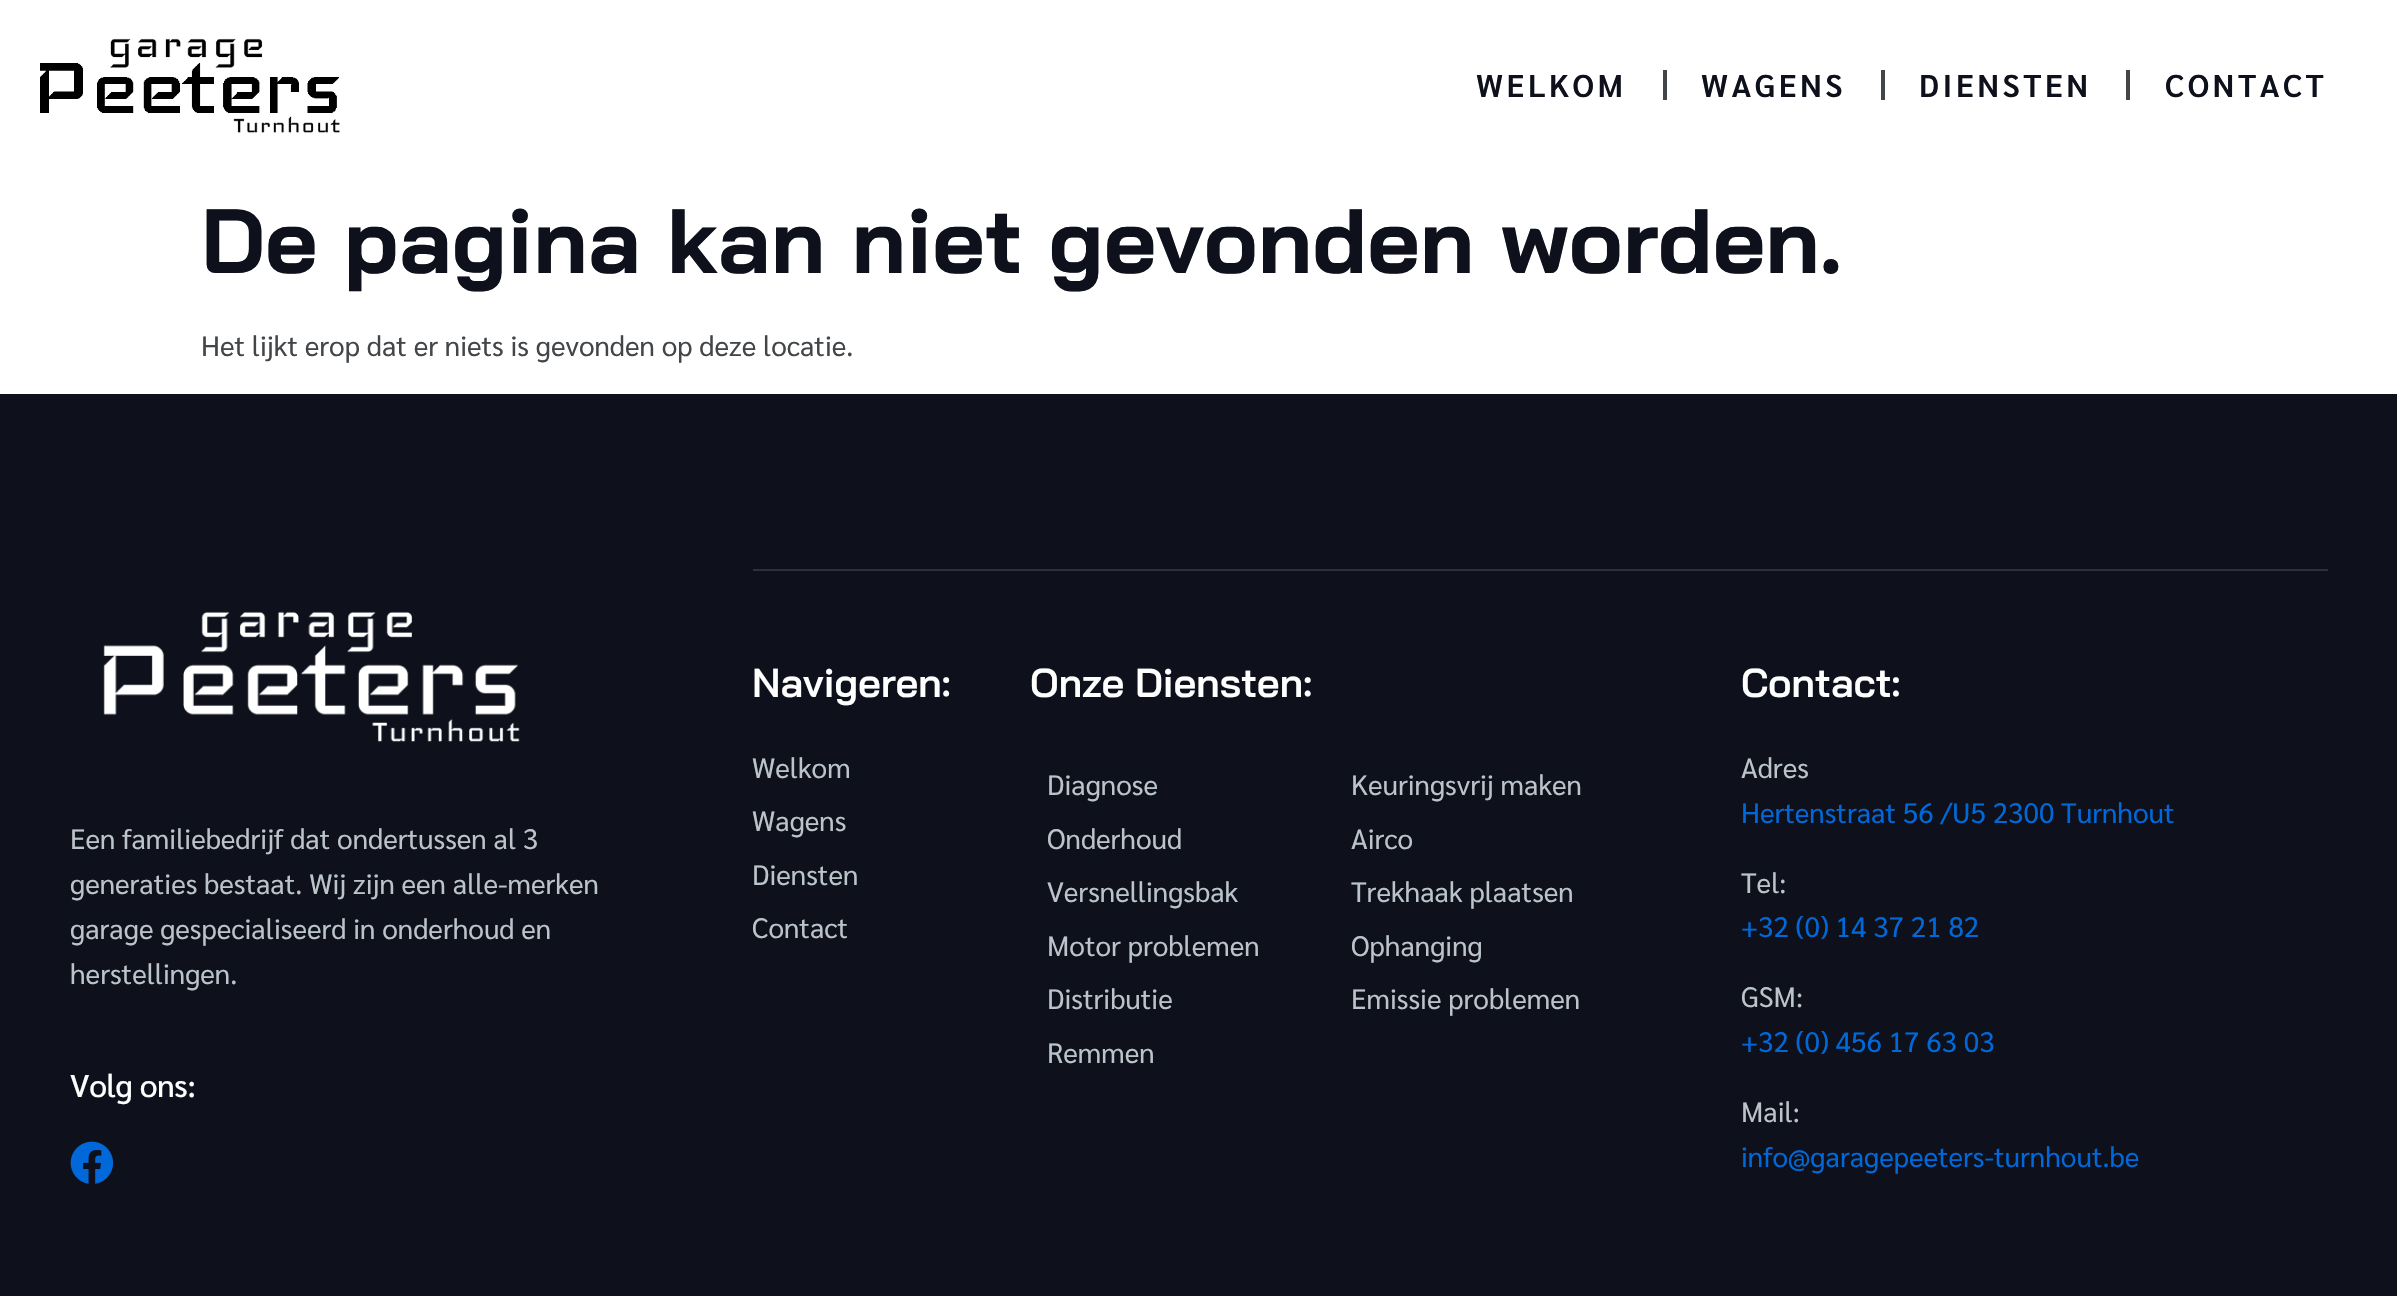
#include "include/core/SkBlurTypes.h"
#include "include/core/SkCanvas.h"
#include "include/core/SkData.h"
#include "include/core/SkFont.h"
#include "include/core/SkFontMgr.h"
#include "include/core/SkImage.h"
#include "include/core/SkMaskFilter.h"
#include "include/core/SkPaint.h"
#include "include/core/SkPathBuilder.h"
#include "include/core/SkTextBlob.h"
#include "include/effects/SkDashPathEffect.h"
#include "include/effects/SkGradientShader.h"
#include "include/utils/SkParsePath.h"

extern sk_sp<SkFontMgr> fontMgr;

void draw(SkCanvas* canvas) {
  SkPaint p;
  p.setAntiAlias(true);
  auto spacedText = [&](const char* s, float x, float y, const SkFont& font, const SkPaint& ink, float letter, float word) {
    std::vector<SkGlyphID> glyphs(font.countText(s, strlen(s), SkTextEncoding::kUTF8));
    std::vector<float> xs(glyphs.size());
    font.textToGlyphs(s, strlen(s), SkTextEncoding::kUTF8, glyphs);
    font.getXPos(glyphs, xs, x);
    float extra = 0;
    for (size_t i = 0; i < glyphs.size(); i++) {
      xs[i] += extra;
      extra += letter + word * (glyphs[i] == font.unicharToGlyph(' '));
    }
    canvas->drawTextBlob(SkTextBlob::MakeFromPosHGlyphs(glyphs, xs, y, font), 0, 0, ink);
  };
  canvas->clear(SK_ColorWHITE);
  canvas->drawImageRect(SkImages::DeferredFromEncodedData(SkData::MakeFromFileName("images/1.png")), SkRect::MakeLTRB(40, 38, 340, 133), SkSamplingOptions());
  p.setColor(SkColorSetRGB(66, 70, 73));
  canvas->drawRect(SkRect::MakeLTRB(1663, 70, 1667, 100), p);
  canvas->drawRect(SkRect::MakeLTRB(1881, 70, 1885, 100), p);
  canvas->drawRect(SkRect::MakeLTRB(2126, 70, 2130, 100), p);
  p.setColor(SkColorSetRGB(14, 17, 27));
  canvas->drawRect(SkRect::MakeLTRB(0, 394, 2397, 1296), p);
  canvas->drawImageRect(SkImages::DeferredFromEncodedData(SkData::MakeFromFileName("images/2.png")), SkRect::MakeLTRB(103, 611, 520, 742), SkSamplingOptions());
  canvas->drawImageRect(SkImages::DeferredFromEncodedData(SkData::MakeFromFileName("images/3.png")), SkRect::MakeLTRB(70, 1141, 114, 1184), SkSamplingOptions());
  p.setColor(SkColorSetRGB(45, 48, 57));
  canvas->drawRect(SkRect::MakeLTRB(753, 569, 2328, 571), p);
  SkFont font1(fontMgr->matchFamilyStyle("Sarabun", SkFontStyle(600, SkFontStyle::kNormal_Width, SkFontStyle::kUpright_Slant)), 31.5f);
  font1.setSubpixel(true);
  p.setColor(SkColorSetRGB(14, 17, 27));
  spacedText("WELKOM", 1476, 97, font1, p, 3.5f, 0);
  spacedText("WAGENS", 1701, 97, font1, p, 3.5f, 0);
  spacedText("DIENSTEN", 1919, 97, font1, p, 3.5f, 0);
  spacedText("CONTACT", 2165, 97, font1, p, 3.5f, 0);
  SkFont font2(fontMgr->matchFamilyStyle("Bai Jamjuree", SkFontStyle::Bold()), 91);
  font2.setSubpixel(true);
  canvas->drawString("De pagina kan niet gevonden worden.", 201, 273, font2, p);
  SkFont font3(fontMgr->matchFamilyStyle("Sarabun", SkFontStyle::Normal()), 28);
  font3.setSubpixel(true);
  p.setColor(SkColorSetRGB(66, 70, 73));
  canvas->drawString("Het lijkt erop dat er niets is gevonden op deze locatie.", 201, 356, font3, p);
  p.setColor(SkColorSetRGB(186, 196, 201));
  canvas->drawString("Een familiebedrijf dat ondertussen al 3", 70, 849, font3, p);
  canvas->drawString("generaties bestaat. Wij zijn een alle-merken", 70, 894, font3, p);
  canvas->drawString("garage gespecialiseerd in onderhoud en", 70, 939, font3, p);
  canvas->drawString("herstellingen.", 70, 984, font3, p);
  SkFont font4(fontMgr->matchFamilyStyle("Sarabun", SkFontStyle(500, SkFontStyle::kNormal_Width, SkFontStyle::kUpright_Slant)), 31.5f);
  font4.setSubpixel(true);
  p.setColor(SK_ColorWHITE);
  spacedText("Volg ons:", 70, 1097, font4, p, -0.3f, 0);
  SkFont font5(fontMgr->matchFamilyStyle("Bai Jamjuree", SkFontStyle(600, SkFontStyle::kNormal_Width, SkFontStyle::kUpright_Slant)), 40.25f);
  font5.setSubpixel(true);
  spacedText("Navigeren:", 752, 697, font5, p, -0.3f, 0);
  p.setColor(SkColorSetRGB(186, 196, 201));
  canvas->drawString("Welkom", 752, 778, font3, p);
  canvas->drawString("Wagens", 752, 831, font3, p);
  canvas->drawString("Diensten", 752, 885, font3, p);
  canvas->drawString("Contact", 752, 938, font3, p);
  p.setColor(SK_ColorWHITE);
  spacedText("Onze Diensten:", 1030, 697, font5, p, -0.3f, 0);
  p.setColor(SkColorSetRGB(186, 196, 201));
  canvas->drawString("Diagnose", 1047, 795, font3, p);
  canvas->drawString("Onderhoud", 1047, 849, font3, p);
  canvas->drawString("Versnellingsbak", 1047, 902, font3, p);
  canvas->drawString("Motor problemen", 1047, 956, font3, p);
  canvas->drawString("Distributie", 1047, 1009, font3, p);
  canvas->drawString("Remmen", 1047, 1063, font3, p);
  canvas->drawString("Keuringsvrij maken", 1351, 795, font3, p);
  canvas->drawString("Airco", 1351, 849, font3, p);
  canvas->drawString("Trekhaak plaatsen", 1351, 902, font3, p);
  canvas->drawString("Ophanging", 1351, 956, font3, p);
  canvas->drawString("Emissie problemen", 1351, 1009, font3, p);
  p.setColor(SK_ColorWHITE);
  spacedText("Contact:", 1741, 697, font5, p, -0.3f, 0);
  p.setColor(SkColorSetRGB(186, 196, 201));
  canvas->drawString("Adres", 1741, 778, font3, p);
  p.setColor(SkColorSetRGB(0, 104, 216));
  canvas->drawString("Hertenstraat 56 /U5 2300 Turnhout", 1741, 823, font3, p);
  p.setColor(SkColorSetRGB(186, 196, 201));
  canvas->drawString("Tel:", 1741, 893, font3, p);
  p.setColor(SkColorSetRGB(0, 104, 216));
  canvas->drawString("+32 (0) 14 37 21 82", 1741, 937, font3, p);
  p.setColor(SkColorSetRGB(186, 196, 201));
  canvas->drawString("GSM:", 1741, 1007, font3, p);
  p.setColor(SkColorSetRGB(0, 104, 216));
  canvas->drawString("+32 (0) 456 17 63 03", 1741, 1052, font3, p);
  p.setColor(SkColorSetRGB(186, 196, 201));
  canvas->drawString("Mail:", 1741, 1122, font3, p);
  p.setColor(SkColorSetRGB(0, 104, 216));
  canvas->drawString("info@garagepeeters-turnhout.be", 1741, 1167, font3, p);
}
